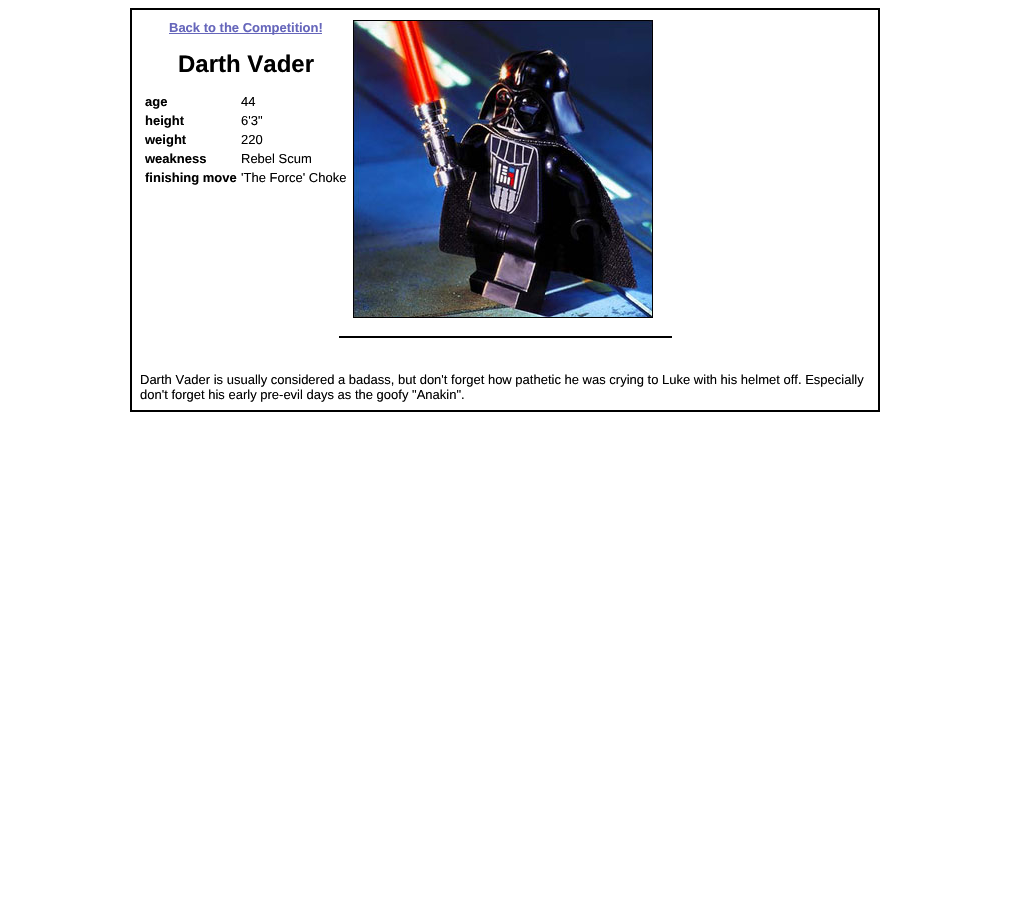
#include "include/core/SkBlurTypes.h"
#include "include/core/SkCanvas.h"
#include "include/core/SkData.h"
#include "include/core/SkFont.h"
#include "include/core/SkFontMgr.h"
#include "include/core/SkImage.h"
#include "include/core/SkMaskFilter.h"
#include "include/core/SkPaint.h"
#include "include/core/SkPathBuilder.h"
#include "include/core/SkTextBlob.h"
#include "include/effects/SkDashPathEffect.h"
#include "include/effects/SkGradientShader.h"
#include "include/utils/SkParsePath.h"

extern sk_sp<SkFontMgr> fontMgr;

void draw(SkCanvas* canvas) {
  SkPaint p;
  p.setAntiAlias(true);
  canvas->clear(SK_ColorWHITE);
  p.setColor(SK_ColorBLACK);
  canvas->drawRect(SkRect::MakeLTRB(130, 8, 880, 412), p);
  p.setColor(SK_ColorWHITE);
  canvas->drawRect(SkRect::MakeLTRB(132, 10, 878, 410), p);
  p.setColor(SkColorSetRGB(102, 102, 187));
  canvas->drawRect(SkRect::MakeLTRB(169, 33, 322, 34), p);
  canvas->drawImageRect(SkImages::DeferredFromEncodedData(SkData::MakeFromFileName("images/1.png")), SkRect::MakeLTRB(353, 20, 653, 318), SkSamplingOptions());
  p.setColor(SK_ColorBLACK);
  canvas->drawRect(SkRect::MakeLTRB(339, 336, 672, 338), p);
  SkFont font1(fontMgr->matchFamilyStyle("Liberation Sans", SkFontStyle::Bold()), 13);
  font1.setSubpixel(true);
  p.setColor(SkColorSetRGB(102, 102, 187));
  canvas->drawString("Back to the Competition!", 169, 32, font1, p);
  SkFont font2(fontMgr->matchFamilyStyle("Liberation Sans", SkFontStyle::Bold()), 24);
  font2.setSubpixel(true);
  p.setColor(SK_ColorBLACK);
  canvas->drawString("Darth Vader", 178, 72, font2, p);
  canvas->drawString("age", 145, 106, font1, p);
  SkFont font3(fontMgr->matchFamilyStyle("Liberation Sans", SkFontStyle::Normal()), 13);
  font3.setSubpixel(true);
  canvas->drawString("44", 241, 106, font3, p);
  canvas->drawString("height", 145, 125, font1, p);
  canvas->drawString("6'3\"", 241, 125, font3, p);
  canvas->drawString("weight", 145, 144, font1, p);
  canvas->drawString("220", 241, 144, font3, p);
  canvas->drawString("weakness", 145, 163, font1, p);
  canvas->drawString("Rebel Scum", 241, 163, font3, p);
  canvas->drawString("finishing move", 145, 182, font1, p);
  canvas->drawString("'The Force' Choke", 241, 182, font3, p);
  canvas->drawString("Darth Vader is usually considered a badass, but don't forget how pathetic he was crying to Luke with his helmet off. Especially", 140, 384, font3, p);
  canvas->drawString("don't forget his early pre-evil days as the goofy \"Anakin\".", 140, 399, font3, p);
}
